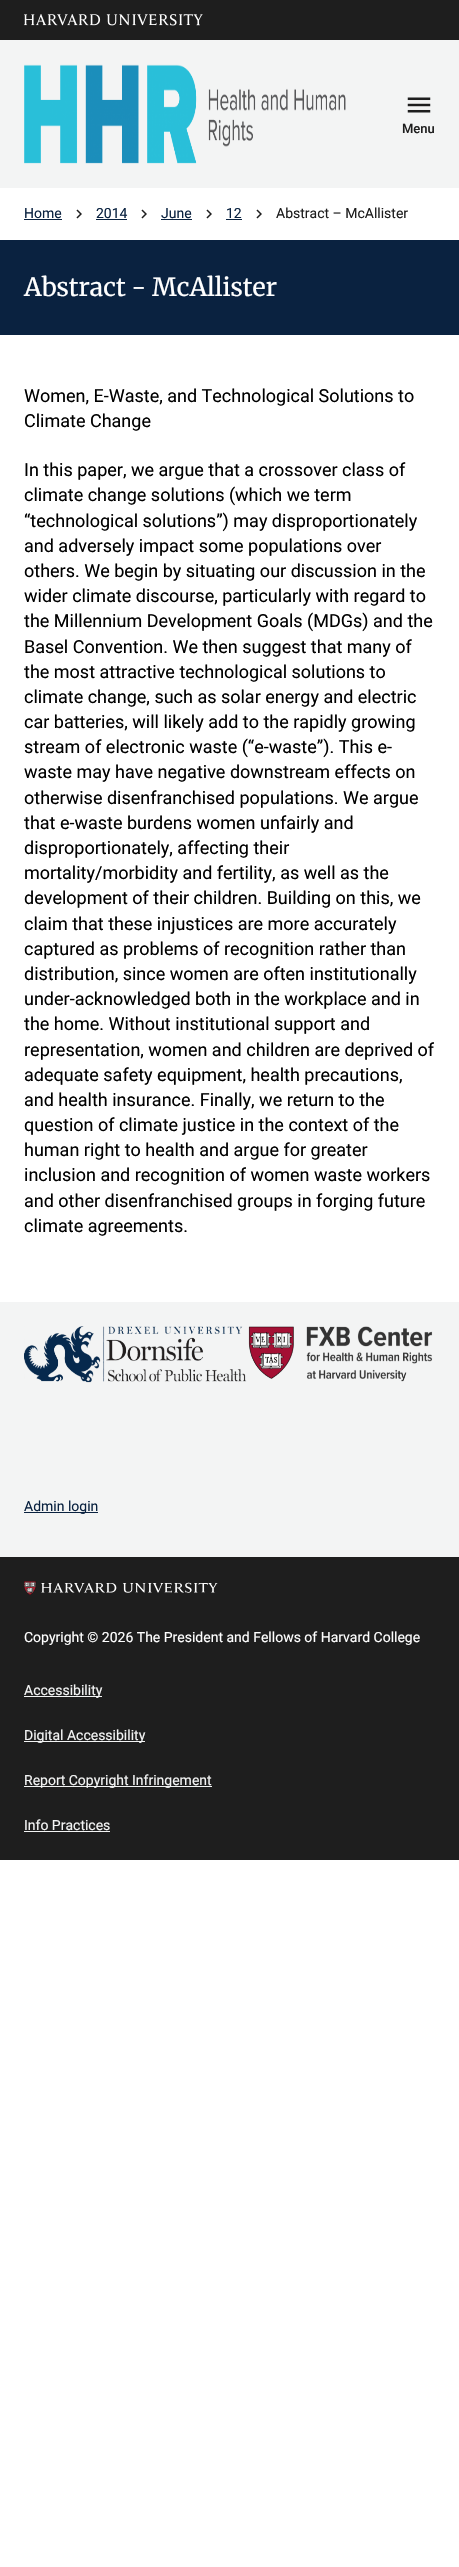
#include "include/core/SkBlurTypes.h"
#include "include/core/SkCanvas.h"
#include "include/core/SkData.h"
#include "include/core/SkFont.h"
#include "include/core/SkFontMgr.h"
#include "include/core/SkImage.h"
#include "include/core/SkMaskFilter.h"
#include "include/core/SkPaint.h"
#include "include/core/SkPathBuilder.h"
#include "include/core/SkTextBlob.h"
#include "include/effects/SkDashPathEffect.h"
#include "include/effects/SkGradientShader.h"
#include "include/utils/SkParsePath.h"

extern sk_sp<SkFontMgr> fontMgr;

void draw(SkCanvas* canvas) {
  SkPaint p;
  p.setAntiAlias(true);
  canvas->clear(SK_ColorWHITE);
  p.setColor(SkColorSetRGB(30, 30, 30));
  canvas->drawRect(SkRect::MakeLTRB(0, 0, 459, 40), p);
  canvas->drawImageRect(SkImages::DeferredFromEncodedData(SkData::MakeFromFileName("images/1.png")), SkRect::MakeLTRB(24, 14, 203, 26), SkSamplingOptions());
  p.setColor(SkColorSetRGB(243, 244, 244));
  canvas->drawRect(SkRect::MakeLTRB(0, 40, 459, 188), p);
  canvas->drawImageRect(SkImages::DeferredFromEncodedData(SkData::MakeFromFileName("images/2.png")), SkRect::MakeLTRB(24, 64, 346, 164), SkSamplingOptions());
  canvas->drawImageRect(SkImages::DeferredFromEncodedData(SkData::MakeFromFileName("images/3.png")), SkRect::MakeLTRB(407, 97, 431, 113), SkSamplingOptions());
  p.setColor(SkColorSetRGB(10, 34, 64));
  canvas->drawRect(SkRect::MakeLTRB(24, 219, 62, 220), p);
  canvas->drawImageRect(SkImages::DeferredFromEncodedData(SkData::MakeFromFileName("images/4.png")), SkRect::MakeLTRB(76, 209, 82, 219), SkSamplingOptions());
  canvas->drawRect(SkRect::MakeLTRB(96, 219, 127, 220), p);
  canvas->drawImageRect(SkImages::DeferredFromEncodedData(SkData::MakeFromFileName("images/4.png")), SkRect::MakeLTRB(141, 209, 147, 219), SkSamplingOptions());
  canvas->drawRect(SkRect::MakeLTRB(161, 219, 192, 220), p);
  canvas->drawImageRect(SkImages::DeferredFromEncodedData(SkData::MakeFromFileName("images/4.png")), SkRect::MakeLTRB(206, 209, 212, 219), SkSamplingOptions());
  canvas->drawRect(SkRect::MakeLTRB(226, 219, 242, 220), p);
  canvas->drawImageRect(SkImages::DeferredFromEncodedData(SkData::MakeFromFileName("images/4.png")), SkRect::MakeLTRB(256, 209, 262, 219), SkSamplingOptions());
  canvas->drawRect(SkRect::MakeLTRB(0, 240, 459, 335), p);
  p.setColor(SkColorSetRGB(243, 244, 244));
  canvas->drawRect(SkRect::MakeLTRB(0, 1302, 459, 1557), p);
  canvas->drawImageRect(SkImages::DeferredFromEncodedData(SkData::MakeFromFileName("images/5.png")), SkRect::MakeLTRB(24, 1326, 433, 1383), SkSamplingOptions());
  p.setColor(SkColorSetRGB(10, 34, 64));
  canvas->drawRect(SkRect::MakeLTRB(24, 1512, 98, 1513), p);
  p.setColor(SkColorSetRGB(30, 30, 30));
  canvas->drawRect(SkRect::MakeLTRB(0, 1557, 459, 1860), p);
  canvas->drawImageRect(SkImages::DeferredFromEncodedData(SkData::MakeFromFileName("images/6.png")), SkRect::MakeLTRB(24, 1581, 218, 1595), SkSamplingOptions());
  p.setColor(SkColorSetRGB(243, 244, 244));
  canvas->drawRect(SkRect::MakeLTRB(24, 1696, 102, 1697), p);
  canvas->drawRect(SkRect::MakeLTRB(24, 1741, 145, 1742), p);
  canvas->drawRect(SkRect::MakeLTRB(24, 1786, 212, 1787), p);
  canvas->drawRect(SkRect::MakeLTRB(24, 1831, 110, 1832), p);
  SkFont font1(fontMgr->matchFamilyStyle("Roboto", SkFontStyle(500, SkFontStyle::kNormal_Width, SkFontStyle::kUpright_Slant)), 13);
  font1.setSubpixel(true);
  p.setColor(SkColorSetRGB(30, 30, 30));
  canvas->drawString("Menu", 402, 133, font1, p);
  SkFont font2(fontMgr->matchFamilyStyle("Roboto", SkFontStyle::Normal()), 14);
  font2.setSubpixel(true);
  p.setColor(SkColorSetRGB(10, 34, 64));
  canvas->drawString("Home", 24, 218, font2, p);
  canvas->drawString("2014", 96, 218, font2, p);
  canvas->drawString("June", 161, 218, font2, p);
  canvas->drawString("12", 226, 218, font2, p);
  p.setColor(SkColorSetRGB(30, 30, 30));
  canvas->drawString("Abstract – McAllister", 276, 218, font2, p);
  SkFont font3(fontMgr->matchFamilyStyle("Merriweather", SkFontStyle::Normal()), 25);
  font3.setSubpixel(true);
  p.setColor(SK_ColorWHITE);
  canvas->drawString("Abstract - McAllister", 24, 296, font3, p);
  SkFont font4(fontMgr->matchFamilyStyle("Roboto", SkFontStyle::Normal()), 18);
  font4.setSubpixel(true);
  p.setColor(SK_ColorBLACK);
  canvas->drawString("Women, E-Waste, and Technological Solutions to", 24, 402, font4, p);
  canvas->drawString("Climate Change", 24, 427, font4, p);
  canvas->drawString("In this paper, we argue that a crossover class of", 24, 476, font4, p);
  canvas->drawString("climate change solutions (which we term", 24, 501, font4, p);
  canvas->drawString("“technological solutions”) may disproportionately", 24, 527, font4, p);
  canvas->drawString("and adversely impact some populations over", 24, 552, font4, p);
  canvas->drawString("others. We begin by situating our discussion in the", 24, 577, font4, p);
  canvas->drawString("wider climate discourse, particularly with regard to", 24, 602, font4, p);
  canvas->drawString("the Millennium Development Goals (MDGs) and the", 24, 627, font4, p);
  canvas->drawString("Basel Convention. We then suggest that many of", 24, 653, font4, p);
  canvas->drawString("the most attractive technological solutions to", 24, 678, font4, p);
  canvas->drawString("climate change, such as solar energy and electric", 24, 703, font4, p);
  canvas->drawString("car batteries, will likely add to the rapidly growing", 24, 728, font4, p);
  canvas->drawString("stream of electronic waste (“e-waste”). This e-", 24, 753, font4, p);
  canvas->drawString("waste may have negative downstream effects on", 24, 778, font4, p);
  canvas->drawString("otherwise disenfranchised populations. We argue", 24, 804, font4, p);
  canvas->drawString("that e-waste burdens women unfairly and", 24, 829, font4, p);
  canvas->drawString("disproportionately, affecting their", 24, 854, font4, p);
  canvas->drawString("mortality/morbidity and fertility, as well as the", 24, 879, font4, p);
  canvas->drawString("development of their children. Building on this, we", 24, 904, font4, p);
  canvas->drawString("claim that these injustices are more accurately", 24, 930, font4, p);
  canvas->drawString("captured as problems of recognition rather than", 24, 955, font4, p);
  canvas->drawString("distribution, since women are often institutionally", 24, 980, font4, p);
  canvas->drawString("under-acknowledged both in the workplace and in", 24, 1005, font4, p);
  canvas->drawString("the home. Without institutional support and", 24, 1030, font4, p);
  canvas->drawString("representation, women and children are deprived of", 24, 1056, font4, p);
  canvas->drawString("adequate safety equipment, health precautions,", 24, 1081, font4, p);
  canvas->drawString("and health insurance. Finally, we return to the", 24, 1106, font4, p);
  canvas->drawString("question of climate justice in the context of the", 24, 1131, font4, p);
  canvas->drawString("human right to health and argue for greater", 24, 1156, font4, p);
  canvas->drawString("inclusion and recognition of women waste workers", 24, 1181, font4, p);
  canvas->drawString("and other disenfranchised groups in forging future", 24, 1207, font4, p);
  canvas->drawString("climate agreements.", 24, 1232, font4, p);
  p.setColor(SkColorSetRGB(10, 34, 64));
  canvas->drawString("Admin login", 24, 1511, font2, p);
  p.setColor(SK_ColorWHITE);
  canvas->drawString("Copyright © 2026 The President and Fellows of Harvard College", 24, 1642, font2, p);
  p.setColor(SkColorSetRGB(243, 244, 244));
  canvas->drawString("Accessibility", 24, 1695, font2, p);
  canvas->drawString("Digital Accessibility", 24, 1740, font2, p);
  canvas->drawString("Report Copyright Infringement", 24, 1785, font2, p);
  canvas->drawString("Info Practices", 24, 1830, font2, p);
}
